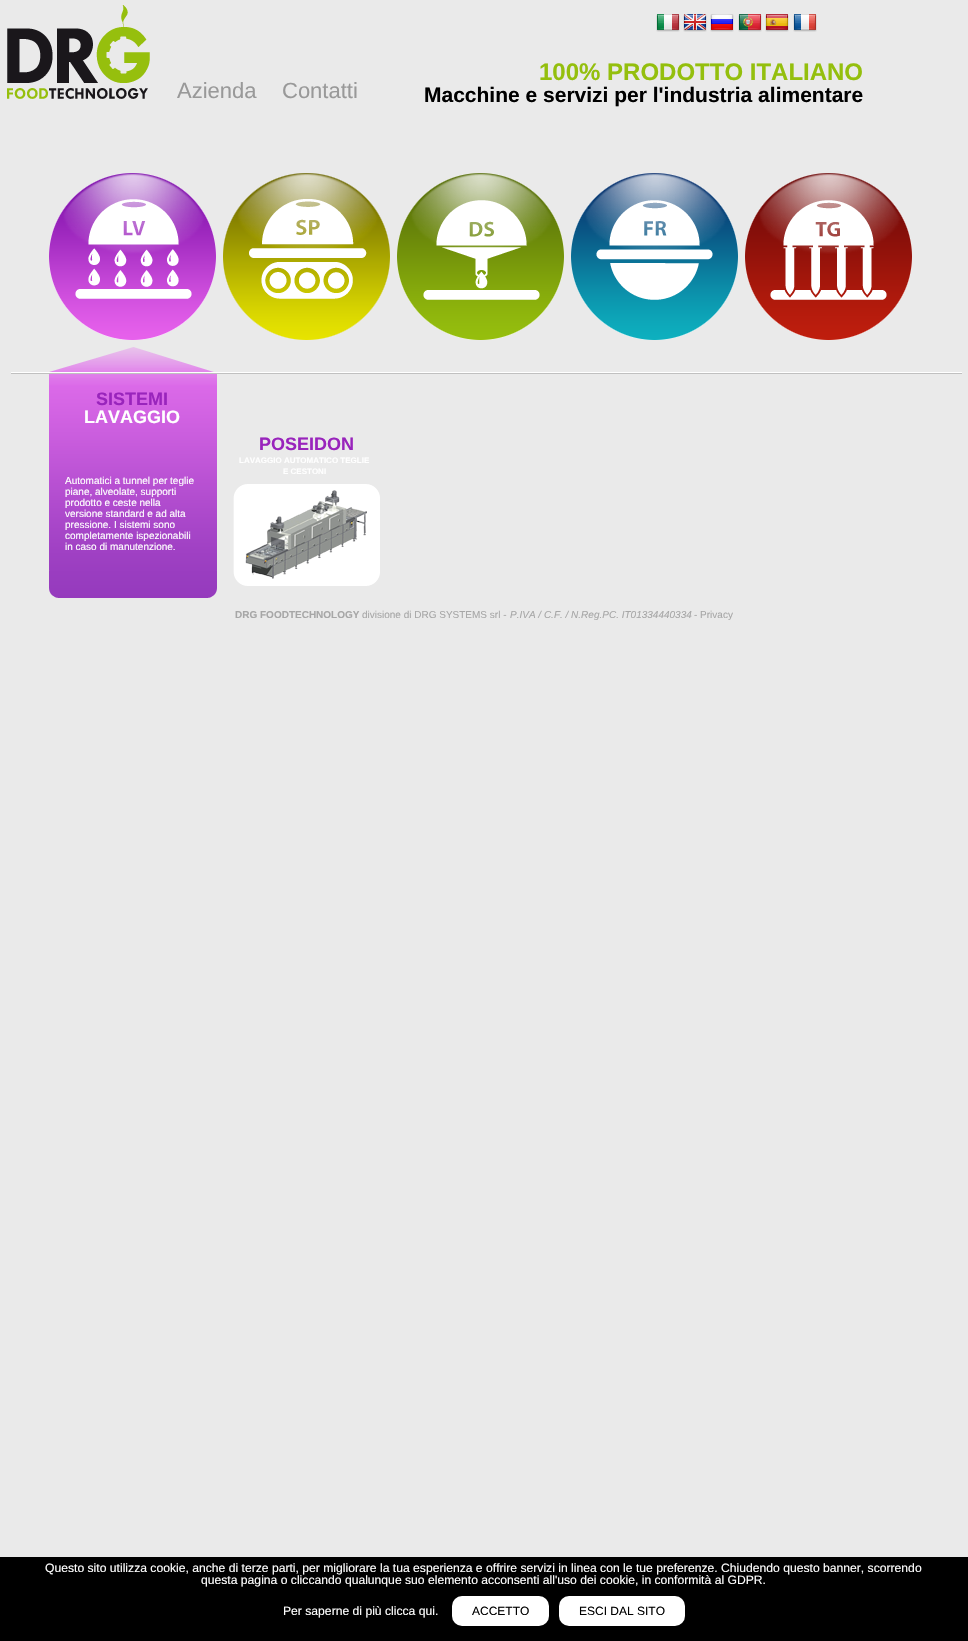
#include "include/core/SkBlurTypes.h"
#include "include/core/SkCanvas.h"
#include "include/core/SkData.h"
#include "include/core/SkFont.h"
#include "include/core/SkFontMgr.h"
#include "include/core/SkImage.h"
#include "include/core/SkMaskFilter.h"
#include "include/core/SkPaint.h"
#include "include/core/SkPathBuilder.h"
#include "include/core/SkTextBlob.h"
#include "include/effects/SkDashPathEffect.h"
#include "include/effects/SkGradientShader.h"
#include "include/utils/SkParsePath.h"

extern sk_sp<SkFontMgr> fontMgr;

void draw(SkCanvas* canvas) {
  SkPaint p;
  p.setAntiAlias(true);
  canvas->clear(SkColorSetRGB(234, 234, 234));
  canvas->drawImageRect(SkImages::DeferredFromEncodedData(SkData::MakeFromFileName("images/1.png")), SkRect::MakeLTRB(11, 372, 962, 374), SkSamplingOptions());
  canvas->drawImageRect(SkImages::DeferredFromEncodedData(SkData::MakeFromFileName("images/2.png")), SkRect::MakeLTRB(656, 14, 680, 32), SkSamplingOptions());
  canvas->drawImageRect(SkImages::DeferredFromEncodedData(SkData::MakeFromFileName("images/3.png")), SkRect::MakeLTRB(683, 14, 707, 32), SkSamplingOptions());
  canvas->drawImageRect(SkImages::DeferredFromEncodedData(SkData::MakeFromFileName("images/4.png")), SkRect::MakeLTRB(710, 14, 734, 32), SkSamplingOptions());
  canvas->drawImageRect(SkImages::DeferredFromEncodedData(SkData::MakeFromFileName("images/5.png")), SkRect::MakeLTRB(738, 14, 762, 32), SkSamplingOptions());
  canvas->drawImageRect(SkImages::DeferredFromEncodedData(SkData::MakeFromFileName("images/6.png")), SkRect::MakeLTRB(765, 14, 789, 32), SkSamplingOptions());
  canvas->drawImageRect(SkImages::DeferredFromEncodedData(SkData::MakeFromFileName("images/7.png")), SkRect::MakeLTRB(793, 14, 817, 32), SkSamplingOptions());
  canvas->drawImageRect(SkImages::DeferredFromEncodedData(SkData::MakeFromFileName("images/8.png")), SkRect::MakeLTRB(7, 5, 150, 99), SkSamplingOptions());
  canvas->drawImageRect(SkImages::DeferredFromEncodedData(SkData::MakeFromFileName("images/9.png")), SkRect::MakeLTRB(223, 173, 390, 340), SkSamplingOptions());
  canvas->drawImageRect(SkImages::DeferredFromEncodedData(SkData::MakeFromFileName("images/10.png")), SkRect::MakeLTRB(397, 173, 564, 340), SkSamplingOptions());
  canvas->drawImageRect(SkImages::DeferredFromEncodedData(SkData::MakeFromFileName("images/11.png")), SkRect::MakeLTRB(571, 173, 738, 340), SkSamplingOptions());
  canvas->drawImageRect(SkImages::DeferredFromEncodedData(SkData::MakeFromFileName("images/12.png")), SkRect::MakeLTRB(745, 173, 912, 340), SkSamplingOptions());
  canvas->drawImageRect(SkImages::DeferredFromEncodedData(SkData::MakeFromFileName("images/13.png")), SkRect::MakeLTRB(49, 173, 216, 340), SkSamplingOptions());
  canvas->drawImageRect(SkImages::DeferredFromEncodedData(SkData::MakeFromFileName("images/14.png")), SkRect::MakeLTRB(49, 347, 217, 598), SkSamplingOptions());
  canvas->drawImageRect(SkImages::DeferredFromEncodedData(SkData::MakeFromFileName("images/15.png")), SkRect::MakeLTRB(233, 484, 380, 586), SkSamplingOptions());
  p.setColor(SK_ColorBLACK);
  canvas->drawRect(SkRect::MakeLTRB(0, 1557, 968, 1641), p);
  p.setColor(SK_ColorWHITE);
  canvas->drawRoundRect(SkRect::MakeLTRB(452, 1596, 549, 1626), 10, 10, p);
  canvas->drawRoundRect(SkRect::MakeLTRB(559, 1596, 685, 1626), 10, 10, p);
  SkFont font1(fontMgr->matchFamilyStyle("Liberation Sans", SkFontStyle::Normal()), 22);
  font1.setSubpixel(true);
  p.setColor(SkColorSetRGB(153, 153, 153));
  canvas->drawString("Azienda", 177, 98, font1, p);
  canvas->drawString("Contatti", 282, 98, font1, p);
  SkFont font2(fontMgr->matchFamilyStyle("Liberation Sans", SkFontStyle::Bold()), 24);
  font2.setSubpixel(true);
  p.setColor(SkColorSetRGB(148, 191, 13));
  canvas->drawString("100% PRODOTTO ITALIANO", 539, 80, font2, p);
  SkFont font3(fontMgr->matchFamilyStyle("Liberation Sans", SkFontStyle::Bold()), 21);
  font3.setSubpixel(true);
  p.setColor(SK_ColorBLACK);
  canvas->drawString("Macchine e servizi per l'industria alimentare", 424, 102, font3, p);
  SkFont font4(fontMgr->matchFamilyStyle("Liberation Sans", SkFontStyle::Bold()), 18);
  font4.setSubpixel(true);
  p.setColor(SkColorSetRGB(153, 36, 188));
  canvas->drawString("SISTEMI", 96, 405, font4, p);
  p.setColor(SK_ColorWHITE);
  canvas->drawString("LAVAGGIO", 84, 423, font4, p);
  SkFont font5(fontMgr->matchFamilyStyle("Liberation Sans", SkFontStyle::Normal()), 10);
  font5.setSubpixel(true);
  canvas->drawString("Automatici a tunnel per teglie", 65, 484, font5, p);
  canvas->drawString("piane, alveolate, supporti", 65, 495, font5, p);
  canvas->drawString("prodotto e ceste nella", 65, 506, font5, p);
  canvas->drawString("versione standard e ad alta", 65, 517, font5, p);
  canvas->drawString("pressione. I sistemi sono", 65, 528, font5, p);
  canvas->drawString("completamente ispezionabili", 65, 539, font5, p);
  canvas->drawString("in caso di manutenzione.", 65, 550, font5, p);
  p.setColor(SkColorSetRGB(153, 36, 188));
  canvas->drawString("POSEIDON", 259, 450, font4, p);
  SkFont font6(fontMgr->matchFamilyStyle("Liberation Sans", SkFontStyle::Bold()), 8);
  font6.setSubpixel(true);
  p.setColor(SK_ColorWHITE);
  canvas->drawString("LAVAGGIO AUTOMATICO TEGLIE", 239, 463, font6, p);
  canvas->drawString("E CESTONI", 283, 474, font6, p);
  SkFont font7(fontMgr->matchFamilyStyle("Liberation Sans", SkFontStyle::Bold()), 10);
  font7.setSubpixel(true);
  p.setColor(SkColorSetRGB(167, 167, 167));
  canvas->drawString("DRG FOODTECHNOLOGY", 235, 618, font7, p);
  canvas->drawString("divisione di DRG SYSTEMS srl -", 362, 618, font5, p);
  SkFont font8(fontMgr->matchFamilyStyle("Liberation Sans", SkFontStyle::Italic()), 10);
  font8.setSubpixel(true);
  canvas->drawString("P.IVA / C.F. / N.Reg.PC. IT01334440334", 510, 618, font8, p);
  canvas->drawString("- Privacy", 694, 618, font5, p);
  SkFont font9(fontMgr->matchFamilyStyle("Liberation Sans", SkFontStyle::Normal()), 12.15f);
  font9.setSubpixel(true);
  p.setColor(SK_ColorWHITE);
  canvas->drawString("Questo sito utilizza cookie, anche di terze parti, per migliorare la tua esperienza e offrire servizi in linea con le tue preferenze. Chiudendo questo banner, scorrendo", 45, 1572, font9, p);
  canvas->drawString("questa pagina o cliccando qualunque suo elemento acconsenti all'uso dei cookie, in conformità al GDPR.", 201, 1584, font9, p);
  canvas->drawString("Per saperne di più clicca qui.", 283, 1615, font9, p);
  SkFont font10(fontMgr->matchFamilyStyle("Liberation Sans", SkFontStyle::Normal()), 12);
  font10.setSubpixel(true);
  p.setColor(SK_ColorBLACK);
  canvas->drawString("ACCETTO", 472, 1615, font10, p);
  canvas->drawString("ESCI DAL SITO", 579, 1615, font10, p);
}
